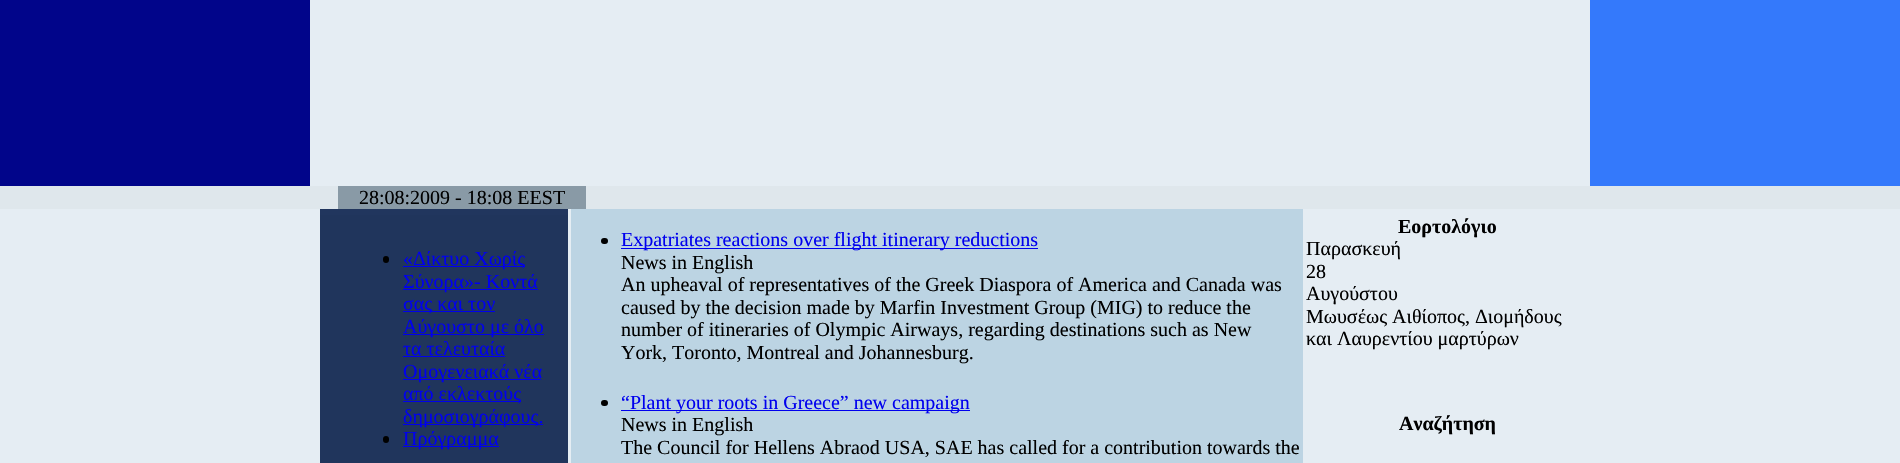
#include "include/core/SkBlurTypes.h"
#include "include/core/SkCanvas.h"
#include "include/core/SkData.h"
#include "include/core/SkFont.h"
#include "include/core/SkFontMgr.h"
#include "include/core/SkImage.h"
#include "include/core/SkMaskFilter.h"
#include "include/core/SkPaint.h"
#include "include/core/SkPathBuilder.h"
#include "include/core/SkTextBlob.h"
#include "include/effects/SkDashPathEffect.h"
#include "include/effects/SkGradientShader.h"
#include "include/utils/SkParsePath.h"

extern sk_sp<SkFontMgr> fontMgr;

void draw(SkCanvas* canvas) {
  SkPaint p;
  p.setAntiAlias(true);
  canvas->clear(SkColorSetRGB(229, 237, 243));
  p.setColor(SkColorSetRGB(1, 5, 138));
  canvas->drawRect(SkRect::MakeLTRB(0, 0, 310, 186), p);
  p.setColor(SkColorSetRGB(52, 121, 251));
  canvas->drawRect(SkRect::MakeLTRB(1590, 0, 1900, 186), p);
  p.setColor(SkColorSetRGB(223, 231, 236));
  canvas->drawRect(SkRect::MakeLTRB(0, 186, 1900, 209), p);
  p.setColor(SkColorSetRGB(137, 154, 166));
  canvas->drawRect(SkRect::MakeLTRB(338, 186, 586, 209), p);
  p.setColor(SkColorSetRGB(33, 54, 94));
  canvas->drawRect(SkRect::MakeLTRB(320, 209, 568, 215), p);
  p.setColor(SkColorSetRGB(32, 53, 92));
  canvas->drawRect(SkRect::MakeLTRB(320, 215, 568, 463), p);
  p.setColor(SK_ColorBLACK);
  canvas->drawRoundRect(SkRect::MakeLTRB(383, 256, 389, 263), 3, 3, p);
  p.setColor(SkColorSetRGB(0, 0, 238));
  canvas->drawRect(SkRect::MakeLTRB(403, 266, 525, 267), p);
  canvas->drawRect(SkRect::MakeLTRB(403, 289, 538, 290), p);
  canvas->drawRect(SkRect::MakeLTRB(403, 311, 495, 312), p);
  canvas->drawRect(SkRect::MakeLTRB(403, 334, 544, 335), p);
  canvas->drawRect(SkRect::MakeLTRB(403, 356, 505, 357), p);
  canvas->drawRect(SkRect::MakeLTRB(403, 379, 541, 380), p);
  canvas->drawRect(SkRect::MakeLTRB(403, 401, 521, 402), p);
  canvas->drawRect(SkRect::MakeLTRB(403, 424, 543, 425), p);
  p.setColor(SK_ColorBLACK);
  canvas->drawRoundRect(SkRect::MakeLTRB(383, 436, 389, 443), 3, 3, p);
  p.setColor(SkColorSetRGB(0, 0, 238));
  canvas->drawRect(SkRect::MakeLTRB(403, 446, 499, 447), p);
  p.setColor(SkColorSetRGB(188, 212, 227));
  canvas->drawRect(SkRect::MakeLTRB(571, 209, 1303, 463), p);
  p.setColor(SK_ColorBLACK);
  canvas->drawRoundRect(SkRect::MakeLTRB(601, 238, 608, 244), 3, 3, p);
  p.setColor(SkColorSetRGB(0, 0, 238));
  canvas->drawRect(SkRect::MakeLTRB(621, 248, 1038, 249), p);
  p.setColor(SK_ColorBLACK);
  canvas->drawRoundRect(SkRect::MakeLTRB(601, 400, 608, 406), 3, 3, p);
  p.setColor(SkColorSetRGB(0, 0, 238));
  canvas->drawRect(SkRect::MakeLTRB(621, 410, 970, 411), p);
  SkFont font1(fontMgr->matchFamilyStyle("Liberation Serif", SkFontStyle::Normal()), 20);
  font1.setSubpixel(true);
  p.setColor(SK_ColorBLACK);
  canvas->drawString("28:08:2009 - 18:08 EEST", 359, 204, font1, p);
  p.setColor(SkColorSetRGB(0, 0, 238));
  canvas->drawString("«Δίκτυο Χωρίς", 403, 265, font1, p);
  canvas->drawString("Σύνορα»- Κοντά", 403, 288, font1, p);
  canvas->drawString("σας και τον", 403, 310, font1, p);
  canvas->drawString("Αύγουστο με όλο", 403, 333, font1, p);
  canvas->drawString("τα τελευταία", 403, 355, font1, p);
  canvas->drawString("Ομογενειακά νέα", 403, 378, font1, p);
  canvas->drawString("από εκλεκτούς", 403, 400, font1, p);
  canvas->drawString("δημοσιογράφους.", 403, 423, font1, p);
  canvas->drawString("Πρόγραμμα", 403, 445, font1, p);
  canvas->drawString("Expatriates reactions over flight itinerary reductions", 621, 246, font1, p);
  p.setColor(SK_ColorBLACK);
  canvas->drawString("News in English", 621, 269, font1, p);
  canvas->drawString("An upheaval of representatives of the Greek Diaspora of America and Canada was", 621, 291, font1, p);
  canvas->drawString("caused by the decision made by Marfin Investment Group (MIG) to reduce the", 621, 314, font1, p);
  canvas->drawString("number of itineraries of Olympic Airways, regarding destinations such as New", 621, 336, font1, p);
  canvas->drawString("York, Toronto, Montreal and Johannesburg.", 621, 359, font1, p);
  p.setColor(SkColorSetRGB(0, 0, 238));
  canvas->drawString("“Plant your roots in Greece” new campaign", 621, 409, font1, p);
  p.setColor(SK_ColorBLACK);
  canvas->drawString("News in English", 621, 431, font1, p);
  canvas->drawString("The Council for Hellens Abraod USA, SAE has called for a contribution towards the", 621, 454, font1, p);
  SkFont font2(fontMgr->matchFamilyStyle("Liberation Serif", SkFontStyle::Bold()), 20);
  font2.setSubpixel(true);
  canvas->drawString("Εορτολόγιο", 1398, 233, font2, p);
  canvas->drawString("Παρασκευή", 1306, 255, font1, p);
  canvas->drawString("28", 1306, 278, font1, p);
  canvas->drawString("Αυγούστου", 1306, 300, font1, p);
  canvas->drawString("Μωυσέως Αιθίοπος, Διομήδους", 1306, 323, font1, p);
  canvas->drawString("και Λαυρεντίου μαρτύρων", 1306, 345, font1, p);
  canvas->drawString("Αναζήτηση", 1399, 430, font2, p);
}
